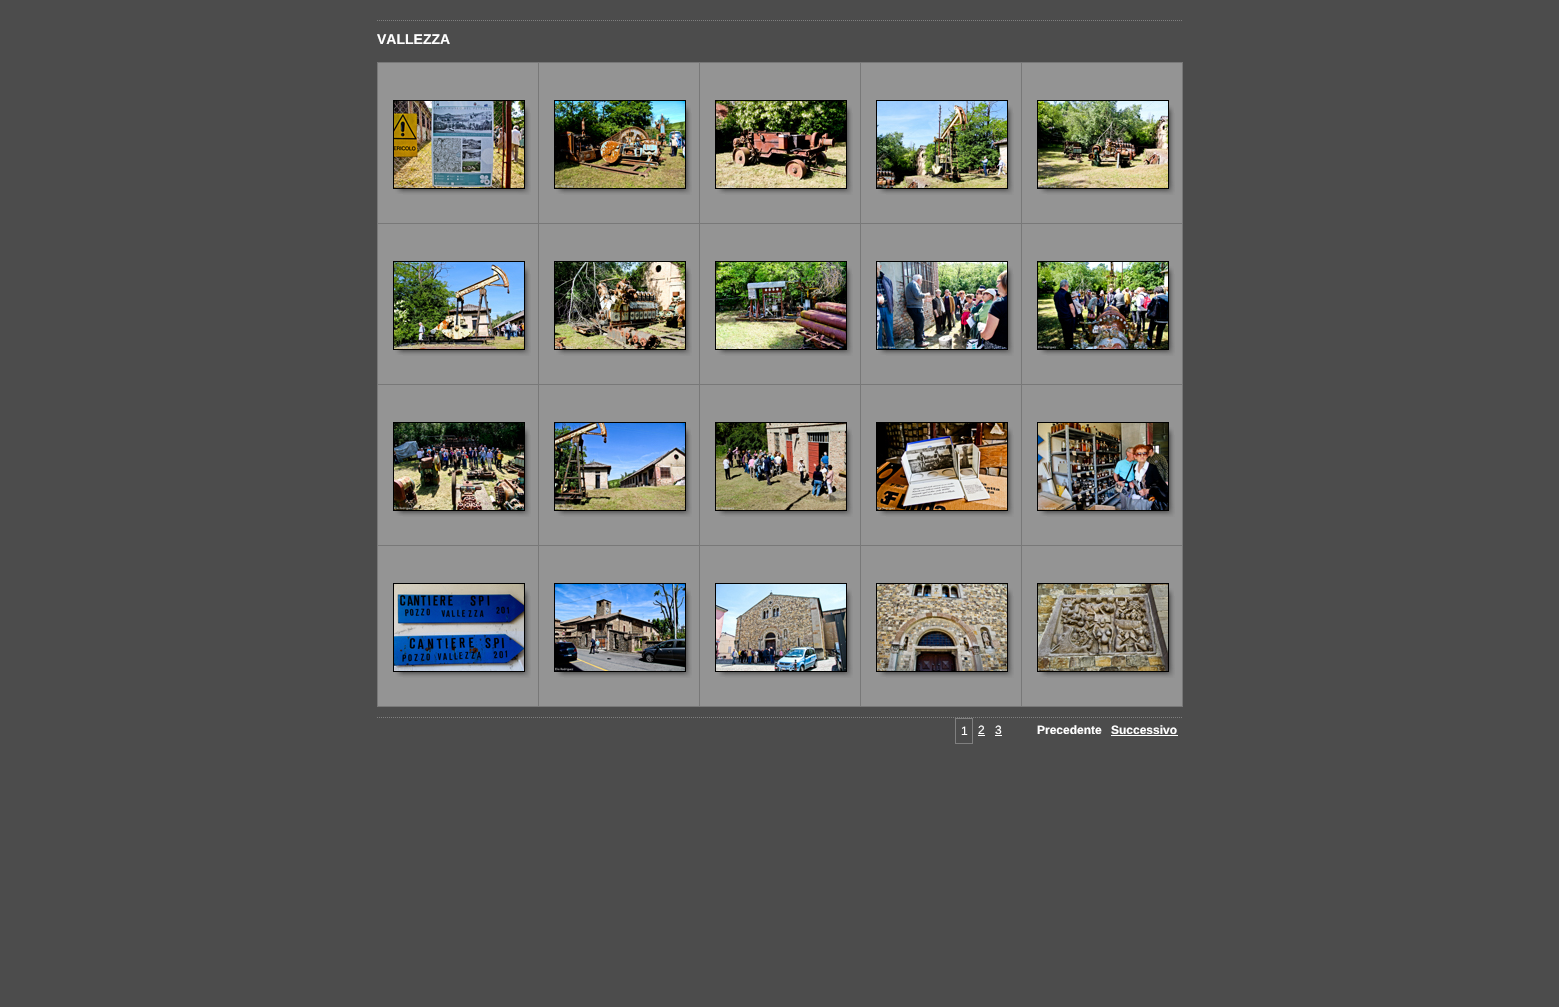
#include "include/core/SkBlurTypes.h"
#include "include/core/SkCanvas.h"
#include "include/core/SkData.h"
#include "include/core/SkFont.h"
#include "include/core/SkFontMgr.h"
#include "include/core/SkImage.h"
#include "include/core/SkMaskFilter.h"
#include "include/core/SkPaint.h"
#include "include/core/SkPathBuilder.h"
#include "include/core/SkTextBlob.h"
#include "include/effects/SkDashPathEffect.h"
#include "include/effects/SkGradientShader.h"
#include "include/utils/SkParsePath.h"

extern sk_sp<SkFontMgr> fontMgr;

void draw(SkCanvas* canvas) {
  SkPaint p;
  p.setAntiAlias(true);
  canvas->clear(SkColorSetRGB(76, 76, 76));
  p.setStyle(SkPaint::kStroke_Style);
  p.setStrokeWidth(1);
  p.setColor(SkColorSetRGB(127, 127, 127));
  p.setPathEffect(SkDashPathEffect::Make({{1, 1}}, 0));
  canvas->drawPath(SkPathBuilder().moveTo(377, 20.5f).lineTo(1183, 20.5f).detach(), p);
  p.setPathEffect(nullptr);
  p.setPathEffect(SkDashPathEffect::Make({{1, 1}}, 0));
  canvas->drawPath(SkPathBuilder().moveTo(377, 717.5f).lineTo(1183, 717.5f).detach(), p);
  p.setPathEffect(nullptr);
  p.setStyle(SkPaint::kFill_Style);
  p.setColor(SkColorSetRGB(148, 148, 148));
  canvas->drawRect(SkRect::MakeLTRB(378, 63, 538, 223), p);
  p.setColor(SkColorSetRGB(120, 120, 120));
  canvas->drawRect(SkRect::MakeLTRB(377, 62, 1183, 63), p);
  canvas->drawRect(SkRect::MakeLTRB(377, 62, 378, 223), p);
  canvas->drawImageRect(SkImages::DeferredFromEncodedData(SkData::MakeFromFileName("images/1.png")), SkRect::MakeLTRB(403, 113, 531, 195), SkSamplingOptions());
  p.setStyle(SkPaint::kStroke_Style);
  p.setColor(SK_ColorBLACK);
  canvas->drawRect(SkRect::MakeLTRB(393.5f, 100.5f, 524.5f, 188.5f), p);
  canvas->drawImageRect(SkImages::DeferredFromEncodedData(SkData::MakeFromFileName("images/2.png")), SkRect::MakeLTRB(394, 101, 524, 188), SkSamplingOptions());
  canvas->drawImageRect(SkImages::DeferredFromEncodedData(SkData::MakeFromFileName("images/3.png")), SkRect::MakeLTRB(525, 105, 530, 113), SkSamplingOptions());
  canvas->drawImageRect(SkImages::DeferredFromEncodedData(SkData::MakeFromFileName("images/4.png")), SkRect::MakeLTRB(395, 189, 403, 194), SkSamplingOptions());
  p.setStyle(SkPaint::kFill_Style);
  p.setColor(SkColorSetRGB(148, 148, 148));
  canvas->drawRect(SkRect::MakeLTRB(539, 63, 699, 223), p);
  p.setColor(SkColorSetRGB(120, 120, 120));
  canvas->drawRect(SkRect::MakeLTRB(538, 62, 539, 223), p);
  canvas->drawImageRect(SkImages::DeferredFromEncodedData(SkData::MakeFromFileName("images/1.png")), SkRect::MakeLTRB(564, 113, 692, 195), SkSamplingOptions());
  p.setStyle(SkPaint::kStroke_Style);
  p.setColor(SK_ColorBLACK);
  canvas->drawRect(SkRect::MakeLTRB(554.5f, 100.5f, 685.5f, 188.5f), p);
  canvas->drawImageRect(SkImages::DeferredFromEncodedData(SkData::MakeFromFileName("images/5.png")), SkRect::MakeLTRB(555, 101, 685, 188), SkSamplingOptions());
  canvas->drawImageRect(SkImages::DeferredFromEncodedData(SkData::MakeFromFileName("images/3.png")), SkRect::MakeLTRB(686, 105, 691, 113), SkSamplingOptions());
  canvas->drawImageRect(SkImages::DeferredFromEncodedData(SkData::MakeFromFileName("images/4.png")), SkRect::MakeLTRB(556, 189, 564, 194), SkSamplingOptions());
  p.setStyle(SkPaint::kFill_Style);
  p.setColor(SkColorSetRGB(148, 148, 148));
  canvas->drawRect(SkRect::MakeLTRB(700, 63, 860, 223), p);
  p.setColor(SkColorSetRGB(120, 120, 120));
  canvas->drawRect(SkRect::MakeLTRB(699, 62, 700, 223), p);
  canvas->drawImageRect(SkImages::DeferredFromEncodedData(SkData::MakeFromFileName("images/1.png")), SkRect::MakeLTRB(725, 113, 853, 195), SkSamplingOptions());
  p.setStyle(SkPaint::kStroke_Style);
  p.setColor(SK_ColorBLACK);
  canvas->drawRect(SkRect::MakeLTRB(715.5f, 100.5f, 846.5f, 188.5f), p);
  canvas->drawImageRect(SkImages::DeferredFromEncodedData(SkData::MakeFromFileName("images/6.png")), SkRect::MakeLTRB(716, 101, 846, 188), SkSamplingOptions());
  canvas->drawImageRect(SkImages::DeferredFromEncodedData(SkData::MakeFromFileName("images/3.png")), SkRect::MakeLTRB(847, 105, 852, 113), SkSamplingOptions());
  canvas->drawImageRect(SkImages::DeferredFromEncodedData(SkData::MakeFromFileName("images/4.png")), SkRect::MakeLTRB(717, 189, 725, 194), SkSamplingOptions());
  p.setStyle(SkPaint::kFill_Style);
  p.setColor(SkColorSetRGB(148, 148, 148));
  canvas->drawRect(SkRect::MakeLTRB(861, 63, 1021, 223), p);
  p.setColor(SkColorSetRGB(120, 120, 120));
  canvas->drawRect(SkRect::MakeLTRB(860, 62, 861, 223), p);
  canvas->drawImageRect(SkImages::DeferredFromEncodedData(SkData::MakeFromFileName("images/1.png")), SkRect::MakeLTRB(886, 113, 1014, 195), SkSamplingOptions());
  p.setStyle(SkPaint::kStroke_Style);
  p.setColor(SK_ColorBLACK);
  canvas->drawRect(SkRect::MakeLTRB(876.5f, 100.5f, 1007.5f, 188.5f), p);
  canvas->drawImageRect(SkImages::DeferredFromEncodedData(SkData::MakeFromFileName("images/7.png")), SkRect::MakeLTRB(877, 101, 1007, 188), SkSamplingOptions());
  canvas->drawImageRect(SkImages::DeferredFromEncodedData(SkData::MakeFromFileName("images/3.png")), SkRect::MakeLTRB(1008, 105, 1013, 113), SkSamplingOptions());
  canvas->drawImageRect(SkImages::DeferredFromEncodedData(SkData::MakeFromFileName("images/4.png")), SkRect::MakeLTRB(878, 189, 886, 194), SkSamplingOptions());
  p.setStyle(SkPaint::kFill_Style);
  p.setColor(SkColorSetRGB(148, 148, 148));
  canvas->drawRect(SkRect::MakeLTRB(1022, 63, 1182, 223), p);
  p.setColor(SkColorSetRGB(120, 120, 120));
  canvas->drawRect(SkRect::MakeLTRB(1182, 62, 1183, 223), p);
  canvas->drawRect(SkRect::MakeLTRB(1021, 62, 1022, 223), p);
  canvas->drawImageRect(SkImages::DeferredFromEncodedData(SkData::MakeFromFileName("images/1.png")), SkRect::MakeLTRB(1047, 113, 1175, 195), SkSamplingOptions());
  p.setStyle(SkPaint::kStroke_Style);
  p.setColor(SK_ColorBLACK);
  canvas->drawRect(SkRect::MakeLTRB(1037.5f, 100.5f, 1168.5f, 188.5f), p);
  canvas->drawImageRect(SkImages::DeferredFromEncodedData(SkData::MakeFromFileName("images/8.png")), SkRect::MakeLTRB(1038, 101, 1168, 188), SkSamplingOptions());
  canvas->drawImageRect(SkImages::DeferredFromEncodedData(SkData::MakeFromFileName("images/3.png")), SkRect::MakeLTRB(1169, 105, 1174, 113), SkSamplingOptions());
  canvas->drawImageRect(SkImages::DeferredFromEncodedData(SkData::MakeFromFileName("images/4.png")), SkRect::MakeLTRB(1039, 189, 1047, 194), SkSamplingOptions());
  p.setStyle(SkPaint::kFill_Style);
  p.setColor(SkColorSetRGB(148, 148, 148));
  canvas->drawRect(SkRect::MakeLTRB(378, 224, 538, 384), p);
  p.setColor(SkColorSetRGB(120, 120, 120));
  canvas->drawRect(SkRect::MakeLTRB(377, 223, 1183, 224), p);
  canvas->drawRect(SkRect::MakeLTRB(377, 223, 378, 384), p);
  canvas->drawImageRect(SkImages::DeferredFromEncodedData(SkData::MakeFromFileName("images/1.png")), SkRect::MakeLTRB(403, 274, 531, 356), SkSamplingOptions());
  p.setStyle(SkPaint::kStroke_Style);
  p.setColor(SK_ColorBLACK);
  canvas->drawRect(SkRect::MakeLTRB(393.5f, 261.5f, 524.5f, 349.5f), p);
  canvas->drawImageRect(SkImages::DeferredFromEncodedData(SkData::MakeFromFileName("images/9.png")), SkRect::MakeLTRB(394, 262, 524, 349), SkSamplingOptions());
  canvas->drawImageRect(SkImages::DeferredFromEncodedData(SkData::MakeFromFileName("images/3.png")), SkRect::MakeLTRB(525, 266, 530, 274), SkSamplingOptions());
  canvas->drawImageRect(SkImages::DeferredFromEncodedData(SkData::MakeFromFileName("images/4.png")), SkRect::MakeLTRB(395, 350, 403, 355), SkSamplingOptions());
  p.setStyle(SkPaint::kFill_Style);
  p.setColor(SkColorSetRGB(148, 148, 148));
  canvas->drawRect(SkRect::MakeLTRB(539, 224, 699, 384), p);
  p.setColor(SkColorSetRGB(120, 120, 120));
  canvas->drawRect(SkRect::MakeLTRB(538, 223, 539, 384), p);
  canvas->drawImageRect(SkImages::DeferredFromEncodedData(SkData::MakeFromFileName("images/1.png")), SkRect::MakeLTRB(564, 274, 692, 356), SkSamplingOptions());
  p.setStyle(SkPaint::kStroke_Style);
  p.setColor(SK_ColorBLACK);
  canvas->drawRect(SkRect::MakeLTRB(554.5f, 261.5f, 685.5f, 349.5f), p);
  canvas->drawImageRect(SkImages::DeferredFromEncodedData(SkData::MakeFromFileName("images/10.png")), SkRect::MakeLTRB(555, 262, 685, 349), SkSamplingOptions());
  canvas->drawImageRect(SkImages::DeferredFromEncodedData(SkData::MakeFromFileName("images/3.png")), SkRect::MakeLTRB(686, 266, 691, 274), SkSamplingOptions());
  canvas->drawImageRect(SkImages::DeferredFromEncodedData(SkData::MakeFromFileName("images/4.png")), SkRect::MakeLTRB(556, 350, 564, 355), SkSamplingOptions());
  p.setStyle(SkPaint::kFill_Style);
  p.setColor(SkColorSetRGB(148, 148, 148));
  canvas->drawRect(SkRect::MakeLTRB(700, 224, 860, 384), p);
  p.setColor(SkColorSetRGB(120, 120, 120));
  canvas->drawRect(SkRect::MakeLTRB(699, 223, 700, 384), p);
  canvas->drawImageRect(SkImages::DeferredFromEncodedData(SkData::MakeFromFileName("images/1.png")), SkRect::MakeLTRB(725, 274, 853, 356), SkSamplingOptions());
  p.setStyle(SkPaint::kStroke_Style);
  p.setColor(SK_ColorBLACK);
  canvas->drawRect(SkRect::MakeLTRB(715.5f, 261.5f, 846.5f, 349.5f), p);
  canvas->drawImageRect(SkImages::DeferredFromEncodedData(SkData::MakeFromFileName("images/11.png")), SkRect::MakeLTRB(716, 262, 846, 349), SkSamplingOptions());
  canvas->drawImageRect(SkImages::DeferredFromEncodedData(SkData::MakeFromFileName("images/3.png")), SkRect::MakeLTRB(847, 266, 852, 274), SkSamplingOptions());
  canvas->drawImageRect(SkImages::DeferredFromEncodedData(SkData::MakeFromFileName("images/4.png")), SkRect::MakeLTRB(717, 350, 725, 355), SkSamplingOptions());
  p.setStyle(SkPaint::kFill_Style);
  p.setColor(SkColorSetRGB(148, 148, 148));
  canvas->drawRect(SkRect::MakeLTRB(861, 224, 1021, 384), p);
  p.setColor(SkColorSetRGB(120, 120, 120));
  canvas->drawRect(SkRect::MakeLTRB(860, 223, 861, 384), p);
  canvas->drawImageRect(SkImages::DeferredFromEncodedData(SkData::MakeFromFileName("images/1.png")), SkRect::MakeLTRB(886, 274, 1014, 356), SkSamplingOptions());
  p.setStyle(SkPaint::kStroke_Style);
  p.setColor(SK_ColorBLACK);
  canvas->drawRect(SkRect::MakeLTRB(876.5f, 261.5f, 1007.5f, 349.5f), p);
  canvas->drawImageRect(SkImages::DeferredFromEncodedData(SkData::MakeFromFileName("images/12.png")), SkRect::MakeLTRB(877, 262, 1007, 349), SkSamplingOptions());
  canvas->drawImageRect(SkImages::DeferredFromEncodedData(SkData::MakeFromFileName("images/3.png")), SkRect::MakeLTRB(1008, 266, 1013, 274), SkSamplingOptions());
  canvas->drawImageRect(SkImages::DeferredFromEncodedData(SkData::MakeFromFileName("images/4.png")), SkRect::MakeLTRB(878, 350, 886, 355), SkSamplingOptions());
  p.setStyle(SkPaint::kFill_Style);
  p.setColor(SkColorSetRGB(148, 148, 148));
  canvas->drawRect(SkRect::MakeLTRB(1022, 224, 1182, 384), p);
  p.setColor(SkColorSetRGB(120, 120, 120));
  canvas->drawRect(SkRect::MakeLTRB(1182, 223, 1183, 384), p);
  canvas->drawRect(SkRect::MakeLTRB(1021, 223, 1022, 384), p);
  canvas->drawImageRect(SkImages::DeferredFromEncodedData(SkData::MakeFromFileName("images/1.png")), SkRect::MakeLTRB(1047, 274, 1175, 356), SkSamplingOptions());
  p.setStyle(SkPaint::kStroke_Style);
  p.setColor(SK_ColorBLACK);
  canvas->drawRect(SkRect::MakeLTRB(1037.5f, 261.5f, 1168.5f, 349.5f), p);
  canvas->drawImageRect(SkImages::DeferredFromEncodedData(SkData::MakeFromFileName("images/13.png")), SkRect::MakeLTRB(1038, 262, 1168, 349), SkSamplingOptions());
  canvas->drawImageRect(SkImages::DeferredFromEncodedData(SkData::MakeFromFileName("images/3.png")), SkRect::MakeLTRB(1169, 266, 1174, 274), SkSamplingOptions());
  canvas->drawImageRect(SkImages::DeferredFromEncodedData(SkData::MakeFromFileName("images/4.png")), SkRect::MakeLTRB(1039, 350, 1047, 355), SkSamplingOptions());
  p.setStyle(SkPaint::kFill_Style);
  p.setColor(SkColorSetRGB(148, 148, 148));
  canvas->drawRect(SkRect::MakeLTRB(378, 385, 538, 545), p);
  p.setColor(SkColorSetRGB(120, 120, 120));
  canvas->drawRect(SkRect::MakeLTRB(377, 384, 1183, 385), p);
  canvas->drawRect(SkRect::MakeLTRB(377, 384, 378, 545), p);
  canvas->drawImageRect(SkImages::DeferredFromEncodedData(SkData::MakeFromFileName("images/1.png")), SkRect::MakeLTRB(403, 435, 531, 517), SkSamplingOptions());
  p.setStyle(SkPaint::kStroke_Style);
  p.setColor(SK_ColorBLACK);
  canvas->drawRect(SkRect::MakeLTRB(393.5f, 422.5f, 524.5f, 510.5f), p);
  canvas->drawImageRect(SkImages::DeferredFromEncodedData(SkData::MakeFromFileName("images/14.png")), SkRect::MakeLTRB(394, 423, 524, 510), SkSamplingOptions());
  canvas->drawImageRect(SkImages::DeferredFromEncodedData(SkData::MakeFromFileName("images/3.png")), SkRect::MakeLTRB(525, 427, 530, 435), SkSamplingOptions());
  canvas->drawImageRect(SkImages::DeferredFromEncodedData(SkData::MakeFromFileName("images/4.png")), SkRect::MakeLTRB(395, 511, 403, 516), SkSamplingOptions());
  p.setStyle(SkPaint::kFill_Style);
  p.setColor(SkColorSetRGB(148, 148, 148));
  canvas->drawRect(SkRect::MakeLTRB(539, 385, 699, 545), p);
  p.setColor(SkColorSetRGB(120, 120, 120));
  canvas->drawRect(SkRect::MakeLTRB(538, 384, 539, 545), p);
  canvas->drawImageRect(SkImages::DeferredFromEncodedData(SkData::MakeFromFileName("images/1.png")), SkRect::MakeLTRB(564, 435, 692, 517), SkSamplingOptions());
  p.setStyle(SkPaint::kStroke_Style);
  p.setColor(SK_ColorBLACK);
  canvas->drawRect(SkRect::MakeLTRB(554.5f, 422.5f, 685.5f, 510.5f), p);
  canvas->drawImageRect(SkImages::DeferredFromEncodedData(SkData::MakeFromFileName("images/15.png")), SkRect::MakeLTRB(555, 423, 685, 510), SkSamplingOptions());
  canvas->drawImageRect(SkImages::DeferredFromEncodedData(SkData::MakeFromFileName("images/3.png")), SkRect::MakeLTRB(686, 427, 691, 435), SkSamplingOptions());
  canvas->drawImageRect(SkImages::DeferredFromEncodedData(SkData::MakeFromFileName("images/4.png")), SkRect::MakeLTRB(556, 511, 564, 516), SkSamplingOptions());
  p.setStyle(SkPaint::kFill_Style);
  p.setColor(SkColorSetRGB(148, 148, 148));
  canvas->drawRect(SkRect::MakeLTRB(700, 385, 860, 545), p);
  p.setColor(SkColorSetRGB(120, 120, 120));
  canvas->drawRect(SkRect::MakeLTRB(699, 384, 700, 545), p);
  canvas->drawImageRect(SkImages::DeferredFromEncodedData(SkData::MakeFromFileName("images/1.png")), SkRect::MakeLTRB(725, 435, 853, 517), SkSamplingOptions());
  p.setStyle(SkPaint::kStroke_Style);
  p.setColor(SK_ColorBLACK);
  canvas->drawRect(SkRect::MakeLTRB(715.5f, 422.5f, 846.5f, 510.5f), p);
  canvas->drawImageRect(SkImages::DeferredFromEncodedData(SkData::MakeFromFileName("images/16.png")), SkRect::MakeLTRB(716, 423, 846, 510), SkSamplingOptions());
  canvas->drawImageRect(SkImages::DeferredFromEncodedData(SkData::MakeFromFileName("images/3.png")), SkRect::MakeLTRB(847, 427, 852, 435), SkSamplingOptions());
  canvas->drawImageRect(SkImages::DeferredFromEncodedData(SkData::MakeFromFileName("images/4.png")), SkRect::MakeLTRB(717, 511, 725, 516), SkSamplingOptions());
  p.setStyle(SkPaint::kFill_Style);
  p.setColor(SkColorSetRGB(148, 148, 148));
  canvas->drawRect(SkRect::MakeLTRB(861, 385, 1021, 545), p);
  p.setColor(SkColorSetRGB(120, 120, 120));
  canvas->drawRect(SkRect::MakeLTRB(860, 384, 861, 545), p);
  canvas->drawImageRect(SkImages::DeferredFromEncodedData(SkData::MakeFromFileName("images/1.png")), SkRect::MakeLTRB(886, 435, 1014, 517), SkSamplingOptions());
  p.setStyle(SkPaint::kStroke_Style);
  p.setColor(SK_ColorBLACK);
  canvas->drawRect(SkRect::MakeLTRB(876.5f, 422.5f, 1007.5f, 510.5f), p);
  canvas->drawImageRect(SkImages::DeferredFromEncodedData(SkData::MakeFromFileName("images/17.png")), SkRect::MakeLTRB(877, 423, 1007, 510), SkSamplingOptions());
  canvas->drawImageRect(SkImages::DeferredFromEncodedData(SkData::MakeFromFileName("images/3.png")), SkRect::MakeLTRB(1008, 427, 1013, 435), SkSamplingOptions());
  canvas->drawImageRect(SkImages::DeferredFromEncodedData(SkData::MakeFromFileName("images/4.png")), SkRect::MakeLTRB(878, 511, 886, 516), SkSamplingOptions());
  p.setStyle(SkPaint::kFill_Style);
  p.setColor(SkColorSetRGB(148, 148, 148));
  canvas->drawRect(SkRect::MakeLTRB(1022, 385, 1182, 545), p);
  p.setColor(SkColorSetRGB(120, 120, 120));
  canvas->drawRect(SkRect::MakeLTRB(1182, 384, 1183, 545), p);
  canvas->drawRect(SkRect::MakeLTRB(1021, 384, 1022, 545), p);
  canvas->drawImageRect(SkImages::DeferredFromEncodedData(SkData::MakeFromFileName("images/1.png")), SkRect::MakeLTRB(1047, 435, 1175, 517), SkSamplingOptions());
  p.setStyle(SkPaint::kStroke_Style);
  p.setColor(SK_ColorBLACK);
  canvas->drawRect(SkRect::MakeLTRB(1037.5f, 422.5f, 1168.5f, 510.5f), p);
  canvas->drawImageRect(SkImages::DeferredFromEncodedData(SkData::MakeFromFileName("images/18.png")), SkRect::MakeLTRB(1038, 423, 1168, 510), SkSamplingOptions());
  canvas->drawImageRect(SkImages::DeferredFromEncodedData(SkData::MakeFromFileName("images/3.png")), SkRect::MakeLTRB(1169, 427, 1174, 435), SkSamplingOptions());
  canvas->drawImageRect(SkImages::DeferredFromEncodedData(SkData::MakeFromFileName("images/4.png")), SkRect::MakeLTRB(1039, 511, 1047, 516), SkSamplingOptions());
  p.setStyle(SkPaint::kFill_Style);
  p.setColor(SkColorSetRGB(148, 148, 148));
  canvas->drawRect(SkRect::MakeLTRB(378, 546, 538, 706), p);
  p.setColor(SkColorSetRGB(120, 120, 120));
  canvas->drawRect(SkRect::MakeLTRB(377, 545, 1021, 546), p);
  canvas->drawRect(SkRect::MakeLTRB(377, 706, 1021, 707), p);
  canvas->drawRect(SkRect::MakeLTRB(377, 545, 378, 707), p);
  canvas->drawImageRect(SkImages::DeferredFromEncodedData(SkData::MakeFromFileName("images/1.png")), SkRect::MakeLTRB(403, 596, 531, 678), SkSamplingOptions());
  p.setStyle(SkPaint::kStroke_Style);
  p.setColor(SK_ColorBLACK);
  canvas->drawRect(SkRect::MakeLTRB(393.5f, 583.5f, 524.5f, 671.5f), p);
  canvas->drawImageRect(SkImages::DeferredFromEncodedData(SkData::MakeFromFileName("images/19.png")), SkRect::MakeLTRB(394, 584, 524, 671), SkSamplingOptions());
  canvas->drawImageRect(SkImages::DeferredFromEncodedData(SkData::MakeFromFileName("images/3.png")), SkRect::MakeLTRB(525, 588, 530, 596), SkSamplingOptions());
  canvas->drawImageRect(SkImages::DeferredFromEncodedData(SkData::MakeFromFileName("images/4.png")), SkRect::MakeLTRB(395, 672, 403, 677), SkSamplingOptions());
  p.setStyle(SkPaint::kFill_Style);
  p.setColor(SkColorSetRGB(148, 148, 148));
  canvas->drawRect(SkRect::MakeLTRB(539, 546, 699, 706), p);
  p.setColor(SkColorSetRGB(120, 120, 120));
  canvas->drawRect(SkRect::MakeLTRB(538, 545, 539, 707), p);
  canvas->drawImageRect(SkImages::DeferredFromEncodedData(SkData::MakeFromFileName("images/1.png")), SkRect::MakeLTRB(564, 596, 692, 678), SkSamplingOptions());
  p.setStyle(SkPaint::kStroke_Style);
  p.setColor(SK_ColorBLACK);
  canvas->drawRect(SkRect::MakeLTRB(554.5f, 583.5f, 685.5f, 671.5f), p);
  canvas->drawImageRect(SkImages::DeferredFromEncodedData(SkData::MakeFromFileName("images/20.png")), SkRect::MakeLTRB(555, 584, 685, 671), SkSamplingOptions());
  canvas->drawImageRect(SkImages::DeferredFromEncodedData(SkData::MakeFromFileName("images/3.png")), SkRect::MakeLTRB(686, 588, 691, 596), SkSamplingOptions());
  canvas->drawImageRect(SkImages::DeferredFromEncodedData(SkData::MakeFromFileName("images/4.png")), SkRect::MakeLTRB(556, 672, 564, 677), SkSamplingOptions());
  p.setStyle(SkPaint::kFill_Style);
  p.setColor(SkColorSetRGB(148, 148, 148));
  canvas->drawRect(SkRect::MakeLTRB(700, 546, 860, 706), p);
  p.setColor(SkColorSetRGB(120, 120, 120));
  canvas->drawRect(SkRect::MakeLTRB(699, 545, 700, 707), p);
  canvas->drawImageRect(SkImages::DeferredFromEncodedData(SkData::MakeFromFileName("images/1.png")), SkRect::MakeLTRB(725, 596, 853, 678), SkSamplingOptions());
  p.setStyle(SkPaint::kStroke_Style);
  p.setColor(SK_ColorBLACK);
  canvas->drawRect(SkRect::MakeLTRB(715.5f, 583.5f, 846.5f, 671.5f), p);
  canvas->drawImageRect(SkImages::DeferredFromEncodedData(SkData::MakeFromFileName("images/21.png")), SkRect::MakeLTRB(716, 584, 846, 671), SkSamplingOptions());
  canvas->drawImageRect(SkImages::DeferredFromEncodedData(SkData::MakeFromFileName("images/3.png")), SkRect::MakeLTRB(847, 588, 852, 596), SkSamplingOptions());
  canvas->drawImageRect(SkImages::DeferredFromEncodedData(SkData::MakeFromFileName("images/4.png")), SkRect::MakeLTRB(717, 672, 725, 677), SkSamplingOptions());
  p.setStyle(SkPaint::kFill_Style);
  p.setColor(SkColorSetRGB(148, 148, 148));
  canvas->drawRect(SkRect::MakeLTRB(861, 546, 1021, 706), p);
  p.setColor(SkColorSetRGB(120, 120, 120));
  canvas->drawRect(SkRect::MakeLTRB(860, 545, 861, 707), p);
  canvas->drawImageRect(SkImages::DeferredFromEncodedData(SkData::MakeFromFileName("images/1.png")), SkRect::MakeLTRB(886, 596, 1014, 678), SkSamplingOptions());
  p.setStyle(SkPaint::kStroke_Style);
  p.setColor(SK_ColorBLACK);
  canvas->drawRect(SkRect::MakeLTRB(876.5f, 583.5f, 1007.5f, 671.5f), p);
  canvas->drawImageRect(SkImages::DeferredFromEncodedData(SkData::MakeFromFileName("images/22.png")), SkRect::MakeLTRB(877, 584, 1007, 671), SkSamplingOptions());
  canvas->drawImageRect(SkImages::DeferredFromEncodedData(SkData::MakeFromFileName("images/3.png")), SkRect::MakeLTRB(1008, 588, 1013, 596), SkSamplingOptions());
  canvas->drawImageRect(SkImages::DeferredFromEncodedData(SkData::MakeFromFileName("images/4.png")), SkRect::MakeLTRB(878, 672, 886, 677), SkSamplingOptions());
  p.setStyle(SkPaint::kFill_Style);
  p.setColor(SkColorSetRGB(148, 148, 148));
  canvas->drawRect(SkRect::MakeLTRB(1021.5f, 545.5f, 1182.5f, 706.5f), p);
  p.setStyle(SkPaint::kStroke_Style);
  p.setColor(SkColorSetRGB(120, 120, 120));
  canvas->drawRect(SkRect::MakeLTRB(1021.5f, 545.5f, 1182.5f, 706.5f), p);
  canvas->drawImageRect(SkImages::DeferredFromEncodedData(SkData::MakeFromFileName("images/1.png")), SkRect::MakeLTRB(1047, 596, 1175, 678), SkSamplingOptions());
  p.setColor(SK_ColorBLACK);
  canvas->drawRect(SkRect::MakeLTRB(1037.5f, 583.5f, 1168.5f, 671.5f), p);
  canvas->drawImageRect(SkImages::DeferredFromEncodedData(SkData::MakeFromFileName("images/23.png")), SkRect::MakeLTRB(1038, 584, 1168, 671), SkSamplingOptions());
  canvas->drawImageRect(SkImages::DeferredFromEncodedData(SkData::MakeFromFileName("images/3.png")), SkRect::MakeLTRB(1169, 588, 1174, 596), SkSamplingOptions());
  canvas->drawImageRect(SkImages::DeferredFromEncodedData(SkData::MakeFromFileName("images/4.png")), SkRect::MakeLTRB(1039, 672, 1047, 677), SkSamplingOptions());
  p.setColor(SkColorSetRGB(127, 127, 127));
  canvas->drawRect(SkRect::MakeLTRB(955.5f, 718.5f, 972.5f, 743.5f), p);
  p.setStyle(SkPaint::kFill_Style);
  p.setColor(SK_ColorWHITE);
  canvas->drawRect(SkRect::MakeLTRB(978, 735, 985, 736), p);
  canvas->drawRect(SkRect::MakeLTRB(995, 735, 1002, 736), p);
  canvas->drawRect(SkRect::MakeLTRB(1111, 735, 1178, 736), p);
  SkFont font1(fontMgr->matchFamilyStyle("Liberation Sans", SkFontStyle::Bold()), 14);
  font1.setSubpixel(true);
  canvas->drawString("VALLEZZA", 377, 44, font1, p);
  SkFont font2(fontMgr->matchFamilyStyle("Liberation Sans", SkFontStyle::Normal()), 12);
  font2.setSubpixel(true);
  canvas->drawString("1", 961, 735, font2, p);
  canvas->drawString("2", 978, 734, font2, p);
  canvas->drawString("3", 995, 734, font2, p);
  SkFont font3(fontMgr->matchFamilyStyle("Liberation Sans", SkFontStyle::Bold()), 12);
  font3.setSubpixel(true);
  canvas->drawString("Precedente", 1037, 734, font3, p);
  canvas->drawString("Successivo", 1111, 734, font3, p);
}
